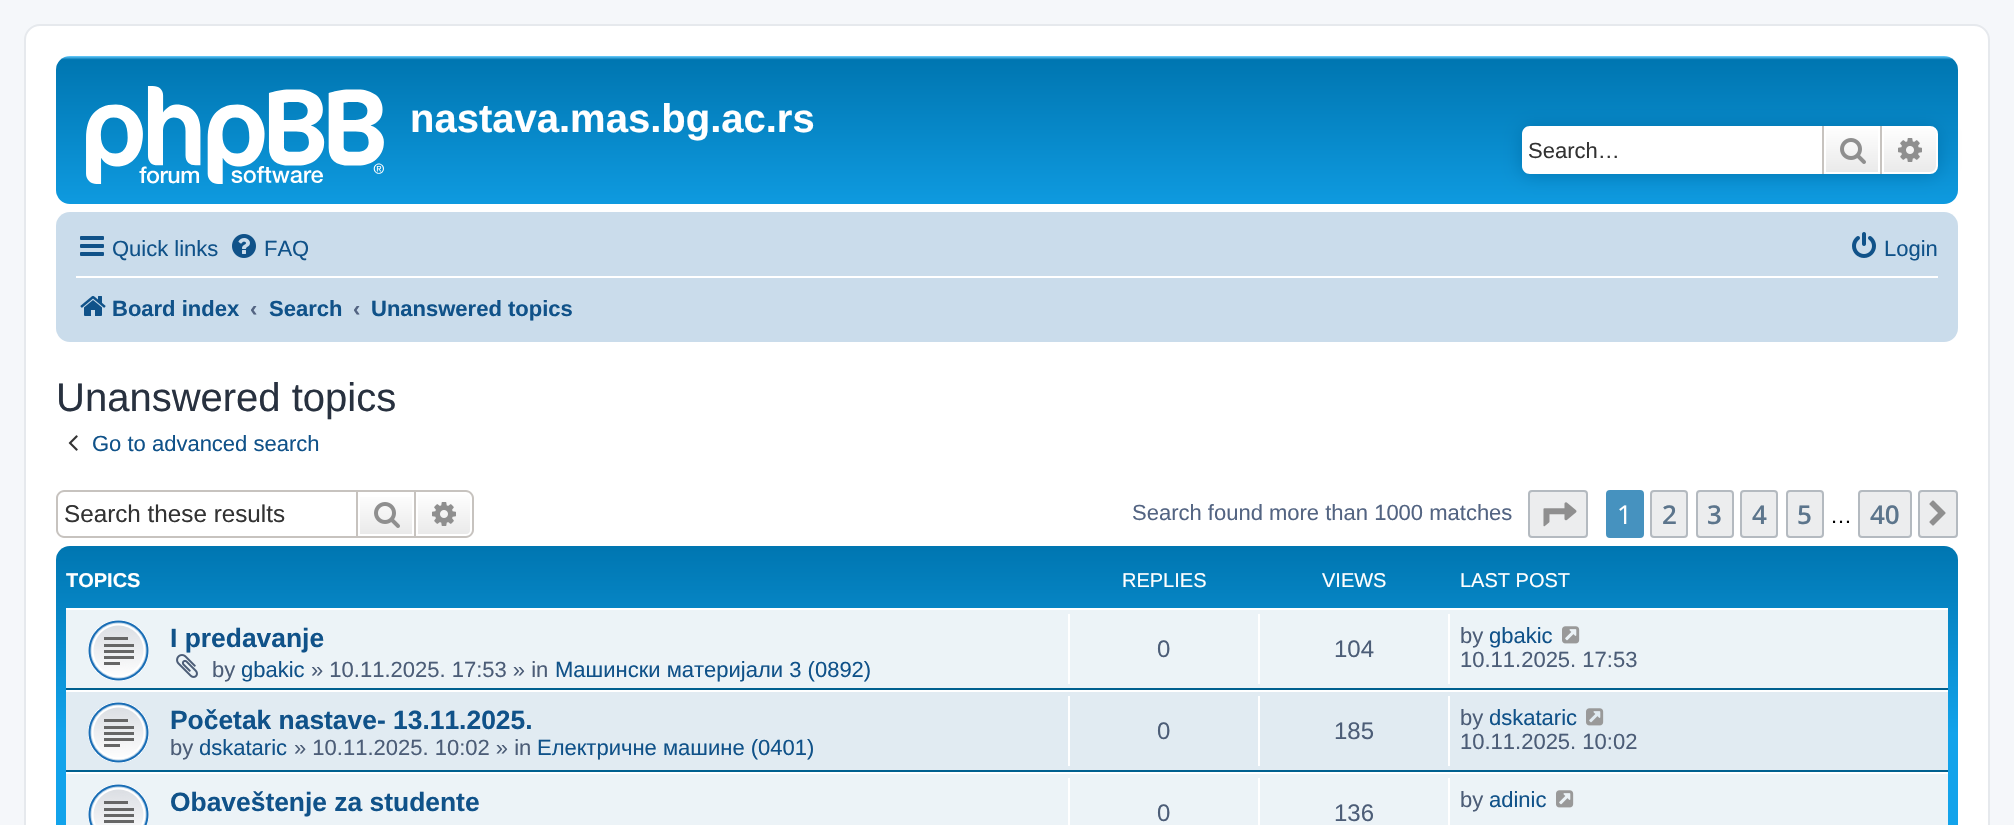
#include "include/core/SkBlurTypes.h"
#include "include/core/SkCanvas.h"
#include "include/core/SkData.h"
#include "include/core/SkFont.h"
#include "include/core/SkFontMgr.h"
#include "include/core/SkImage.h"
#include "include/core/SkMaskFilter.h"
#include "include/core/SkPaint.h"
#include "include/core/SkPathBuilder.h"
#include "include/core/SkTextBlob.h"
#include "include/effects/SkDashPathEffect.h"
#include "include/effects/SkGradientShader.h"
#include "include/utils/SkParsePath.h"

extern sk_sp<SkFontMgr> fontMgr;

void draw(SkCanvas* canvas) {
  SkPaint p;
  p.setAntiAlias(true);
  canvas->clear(SkColorSetRGB(245, 247, 250));
  p.setColor(SK_ColorWHITE);
  canvas->drawRoundRect(SkRect::MakeLTRB(25, 25, 1989, 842), 15, 15, p);
  p.setStyle(SkPaint::kStroke_Style);
  p.setStrokeWidth(2);
  p.setColor(SkColorSetRGB(230, 233, 237));
  canvas->drawRoundRect(SkRect::MakeLTRB(25, 25, 1989, 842), 15, 15, p);
  p.setStyle(SkPaint::kFill_Style);
  {
    const SkColor colors[] = {SkColorSetRGB(106, 206, 255), SkColorSetRGB(0, 118, 177), SkColorSetRGB(18, 163, 235)};
    const float stops[] = {0, 0.02f, 1};
    const SkPoint ends[] = {{1007, 56}, {1007, 240}};
    p.setShader(SkGradientShader::MakeLinear(ends, colors, stops, 3, SkTileMode::kClamp));
    p.setAlpha(255);
  }
  canvas->drawRoundRect(SkRect::MakeLTRB(56, 56, 1958, 204), 14, 14, p);
  canvas->drawImageRect(SkImages::DeferredFromEncodedData(SkData::MakeFromFileName("images/1.png")), SkRect::MakeLTRB(86, 86, 384, 184), SkSamplingOptions());
  p.setShader(nullptr);
  p.setColor(SkColorSetRGB(0, 117, 176));
  p.setMaskFilter(SkMaskFilter::MakeBlur(kNormal_SkBlurStyle, 10));
  canvas->drawRoundRect(SkRect::MakeLTRB(1522, 126, 1938, 174), 8, 8, p);
  p.setMaskFilter(nullptr);
  p.setColor(SK_ColorWHITE);
  canvas->drawPath(SkPathBuilder().moveTo(1530, 126).lineTo(1822, 126).lineTo(1822, 174).lineTo(1530, 174).cubicTo(1525.5f, 174, 1522, 170.5f, 1522, 166).lineTo(1522, 134).cubicTo(1522, 129.5f, 1525.5f, 126, 1530, 126).close().detach(), p);
  {
    const SkColor colors[] = {SK_ColorWHITE, SkColorSetRGB(233, 233, 233)};
    const float stops[] = {0, 1};
    const SkPoint ends[] = {{1852, 126}, {1852, 174}};
    p.setShader(SkGradientShader::MakeLinear(ends, colors, stops, 2, SkTileMode::kClamp));
    p.setAlpha(255);
  }
  canvas->drawRect(SkRect::MakeLTRB(1826, 128, 1878, 172), p);
  p.setStyle(SkPaint::kStroke_Style);
  p.setShader(nullptr);
  p.setColor(SK_ColorWHITE);
  canvas->drawRect(SkRect::MakeLTRB(1825, 127, 1879, 173), p);
  p.setStyle(SkPaint::kFill_Style);
  p.setColor(SkColorSetRGB(199, 195, 191));
  canvas->drawRect(SkRect::MakeLTRB(1880, 126, 1882, 174), p);
  canvas->drawRect(SkRect::MakeLTRB(1822, 126, 1824, 174), p);
  canvas->drawImageRect(SkImages::DeferredFromEncodedData(SkData::MakeFromFileName("images/2.png")), SkRect::MakeLTRB(1840, 138, 1866, 164), SkSamplingOptions());
  {
    const SkColor colors[] = {SK_ColorWHITE, SkColorSetRGB(233, 233, 233)};
    const float stops[] = {0, 1};
    const SkPoint ends[] = {{1910, 126}, {1910, 174}};
    p.setShader(SkGradientShader::MakeLinear(ends, colors, stops, 2, SkTileMode::kClamp));
    p.setAlpha(255);
  }
  canvas->drawPath(SkPathBuilder().moveTo(1883, 127).lineTo(1930, 127).cubicTo(1934, 127, 1937, 130, 1937, 134).lineTo(1937, 166).cubicTo(1937, 170, 1934, 173, 1930, 173).lineTo(1883, 173).close().detach(), p);
  p.setStyle(SkPaint::kStroke_Style);
  p.setShader(nullptr);
  p.setColor(SK_ColorWHITE);
  canvas->drawPath(SkPathBuilder().moveTo(1883, 127).lineTo(1930, 127).cubicTo(1934, 127, 1937, 130, 1937, 134).lineTo(1937, 166).cubicTo(1937, 170, 1934, 173, 1930, 173).lineTo(1883, 173).close().detach(), p);
  canvas->drawImageRect(SkImages::DeferredFromEncodedData(SkData::MakeFromFileName("images/3.png")), SkRect::MakeLTRB(1898, 138, 1922, 162), SkSamplingOptions());
  p.setStyle(SkPaint::kFill_Style);
  p.setColor(SkColorSetRGB(202, 220, 235));
  canvas->drawRoundRect(SkRect::MakeLTRB(56, 212, 1958, 342), 14, 14, p);
  canvas->drawImageRect(SkImages::DeferredFromEncodedData(SkData::MakeFromFileName("images/4.png")), SkRect::MakeLTRB(80, 236, 104, 256), SkSamplingOptions());
  canvas->drawImageRect(SkImages::DeferredFromEncodedData(SkData::MakeFromFileName("images/5.png")), SkRect::MakeLTRB(232, 234, 256, 258), SkSamplingOptions());
  canvas->drawImageRect(SkImages::DeferredFromEncodedData(SkData::MakeFromFileName("images/6.png")), SkRect::MakeLTRB(1852, 232, 1876, 258), SkSamplingOptions());
  p.setColor(SK_ColorWHITE);
  canvas->drawRect(SkRect::MakeLTRB(76, 276, 1938, 278), p);
  canvas->drawImageRect(SkImages::DeferredFromEncodedData(SkData::MakeFromFileName("images/7.png")), SkRect::MakeLTRB(80, 296, 106, 316), SkSamplingOptions());
  canvas->drawImageRect(SkImages::DeferredFromEncodedData(SkData::MakeFromFileName("images/8.png")), SkRect::MakeLTRB(68, 435, 78, 451), SkSamplingOptions());
  p.setColor(SkColorSetRGB(199, 195, 191));
  canvas->drawPath(SkPathBuilder(SkPathFillType::kEvenOdd).moveTo(64, 490).lineTo(356, 490).lineTo(356, 538).lineTo(64, 538).cubicTo(60, 538, 56, 534, 56, 530).lineTo(56, 498).cubicTo(56, 494, 60, 490, 64, 490).close().moveTo(64, 492).lineTo(356, 492).lineTo(356, 536).lineTo(64, 536).cubicTo(61, 536, 58, 533, 58, 530).lineTo(58, 498).cubicTo(58, 495, 61, 492, 64, 492).close().detach(), p);
  {
    const SkColor colors[] = {SK_ColorWHITE, SkColorSetRGB(233, 233, 233)};
    const float stops[] = {0, 1};
    const SkPoint ends[] = {{386, 492}, {386, 536}};
    p.setShader(SkGradientShader::MakeLinear(ends, colors, stops, 2, SkTileMode::kClamp));
    p.setAlpha(255);
  }
  canvas->drawRect(SkRect::MakeLTRB(360, 497, 412, 534), p);
  p.setStyle(SkPaint::kStroke_Style);
  p.setShader(nullptr);
  p.setColor(SkColorSetRGB(199, 195, 191));
  canvas->drawRect(SkRect::MakeLTRB(357, 491, 415, 537), p);
  canvas->drawImageRect(SkImages::DeferredFromEncodedData(SkData::MakeFromFileName("images/9.png")), SkRect::MakeLTRB(374, 502, 400, 528), SkSamplingOptions());
  p.setStyle(SkPaint::kFill_Style);
  {
    const SkColor colors[] = {SK_ColorWHITE, SkColorSetRGB(233, 233, 233)};
    const float stops[] = {0, 1};
    const SkPoint ends[] = {{444, 492}, {444, 536}};
    p.setShader(SkGradientShader::MakeLinear(ends, colors, stops, 2, SkTileMode::kClamp));
    p.setAlpha(255);
  }
  canvas->drawPath(SkPathBuilder().moveTo(417, 493).lineTo(466, 493).cubicTo(469, 493, 471, 495, 471, 498).lineTo(471, 530).cubicTo(471, 533, 469, 535, 466, 535).lineTo(417, 535).close().detach(), p);
  p.setStyle(SkPaint::kStroke_Style);
  p.setShader(nullptr);
  p.setColor(SK_ColorWHITE);
  canvas->drawPath(SkPathBuilder().moveTo(417, 493).lineTo(466, 493).cubicTo(469, 493, 471, 495, 471, 498).lineTo(471, 530).cubicTo(471, 533, 469, 535, 466, 535).lineTo(417, 535).close().detach(), p);
  p.setStyle(SkPaint::kFill_Style);
  p.setColor(SkColorSetRGB(199, 195, 191));
  canvas->drawPath(SkPathBuilder(SkPathFillType::kEvenOdd).moveTo(416, 490).lineTo(466, 490).cubicTo(470, 490, 474, 494, 474, 498).lineTo(474, 530).cubicTo(474, 534, 470, 538, 466, 538).lineTo(416, 538).close().moveTo(416, 492).lineTo(466, 492).cubicTo(469, 492, 472, 495, 472, 498).lineTo(472, 530).cubicTo(472, 533, 469, 536, 466, 536).lineTo(416, 536).close().detach(), p);
  canvas->drawImageRect(SkImages::DeferredFromEncodedData(SkData::MakeFromFileName("images/10.png")), SkRect::MakeLTRB(432, 502, 456, 526), SkSamplingOptions());
  p.setColor(SkColorSetRGB(236, 237, 238));
  canvas->drawRoundRect(SkRect::MakeLTRB(1529, 491, 1587, 537), 3, 3, p);
  p.setStyle(SkPaint::kStroke_Style);
  p.setColor(SkColorSetRGB(180, 186, 192));
  canvas->drawRoundRect(SkRect::MakeLTRB(1529, 491, 1587, 537), 3, 3, p);
  canvas->drawImageRect(SkImages::DeferredFromEncodedData(SkData::MakeFromFileName("images/11.png")), SkRect::MakeLTRB(1543, 502, 1577, 527), SkSamplingOptions());
  p.setStyle(SkPaint::kFill_Style);
  p.setColor(SkColorSetRGB(70, 146, 191));
  canvas->drawRoundRect(SkRect::MakeLTRB(1607, 491, 1643, 537), 3, 3, p);
  p.setStyle(SkPaint::kStroke_Style);
  canvas->drawRoundRect(SkRect::MakeLTRB(1607, 491, 1643, 537), 3, 3, p);
  p.setStyle(SkPaint::kFill_Style);
  p.setColor(SkColorSetRGB(236, 237, 238));
  canvas->drawRoundRect(SkRect::MakeLTRB(1651, 491, 1687, 537), 3, 3, p);
  p.setStyle(SkPaint::kStroke_Style);
  p.setColor(SkColorSetRGB(180, 186, 192));
  canvas->drawRoundRect(SkRect::MakeLTRB(1651, 491, 1687, 537), 3, 3, p);
  p.setStyle(SkPaint::kFill_Style);
  p.setColor(SkColorSetRGB(236, 237, 238));
  canvas->drawRoundRect(SkRect::MakeLTRB(1697, 491, 1733, 537), 3, 3, p);
  p.setStyle(SkPaint::kStroke_Style);
  p.setColor(SkColorSetRGB(180, 186, 192));
  canvas->drawRoundRect(SkRect::MakeLTRB(1697, 491, 1733, 537), 3, 3, p);
  p.setStyle(SkPaint::kFill_Style);
  p.setColor(SkColorSetRGB(236, 237, 238));
  canvas->drawRoundRect(SkRect::MakeLTRB(1741, 491, 1777, 537), 3, 3, p);
  p.setStyle(SkPaint::kStroke_Style);
  p.setColor(SkColorSetRGB(180, 186, 192));
  canvas->drawRoundRect(SkRect::MakeLTRB(1741, 491, 1777, 537), 3, 3, p);
  p.setStyle(SkPaint::kFill_Style);
  p.setColor(SkColorSetRGB(236, 237, 238));
  canvas->drawRoundRect(SkRect::MakeLTRB(1787, 491, 1823, 537), 3, 3, p);
  p.setStyle(SkPaint::kStroke_Style);
  p.setColor(SkColorSetRGB(180, 186, 192));
  canvas->drawRoundRect(SkRect::MakeLTRB(1787, 491, 1823, 537), 3, 3, p);
  p.setStyle(SkPaint::kFill_Style);
  p.setColor(SkColorSetRGB(236, 237, 238));
  canvas->drawRoundRect(SkRect::MakeLTRB(1859, 491, 1911, 537), 3, 3, p);
  p.setStyle(SkPaint::kStroke_Style);
  p.setColor(SkColorSetRGB(180, 186, 192));
  canvas->drawRoundRect(SkRect::MakeLTRB(1859, 491, 1911, 537), 3, 3, p);
  p.setStyle(SkPaint::kFill_Style);
  p.setColor(SkColorSetRGB(236, 237, 238));
  canvas->drawRoundRect(SkRect::MakeLTRB(1919, 491, 1957, 537), 3, 3, p);
  p.setStyle(SkPaint::kStroke_Style);
  p.setColor(SkColorSetRGB(180, 186, 192));
  canvas->drawRoundRect(SkRect::MakeLTRB(1919, 491, 1957, 537), 3, 3, p);
  canvas->drawImageRect(SkImages::DeferredFromEncodedData(SkData::MakeFromFileName("images/12.png")), SkRect::MakeLTRB(1929, 500, 1946, 526), SkSamplingOptions());
  p.setStyle(SkPaint::kFill_Style);
  {
    const SkColor colors[] = {SkColorSetRGB(106, 206, 255), SkColorSetRGB(0, 118, 177), SkColorSetRGB(18, 163, 235), SkColorSetRGB(18, 163, 235)};
    const float stops[] = {0, 0, 0.08f, 1};
    const SkPoint ends[] = {{1007, 546}, {1007, 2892}};
    p.setShader(SkGradientShader::MakeLinear(ends, colors, stops, 4, SkTileMode::kClamp));
    p.setAlpha(255);
  }
  canvas->drawRoundRect(SkRect::MakeLTRB(56, 546, 1958, 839), 14, 14, p);
  p.setShader(nullptr);
  p.setColor(SkColorSetRGB(236, 243, 247));
  canvas->drawRect(SkRect::MakeLTRB(66, 610, 1948, 688), p);
  p.setColor(SK_ColorWHITE);
  canvas->drawRect(SkRect::MakeLTRB(66, 608, 1948, 610), p);
  p.setColor(SkColorSetRGB(0, 96, 143));
  canvas->drawRect(SkRect::MakeLTRB(66, 688, 1948, 690), p);
  canvas->drawImageRect(SkImages::DeferredFromEncodedData(SkData::MakeFromFileName("images/13.png")), SkRect::MakeLTRB(88, 620, 149, 681), SkSamplingOptions());
  canvas->drawImageRect(SkImages::DeferredFromEncodedData(SkData::MakeFromFileName("images/14.png")), SkRect::MakeLTRB(176, 654, 198, 678), SkSamplingOptions());
  p.setColor(SK_ColorWHITE);
  canvas->drawRect(SkRect::MakeLTRB(1068, 614, 1070, 684), p);
  canvas->drawRect(SkRect::MakeLTRB(1258, 614, 1260, 684), p);
  canvas->drawRect(SkRect::MakeLTRB(1448, 614, 1450, 684), p);
  canvas->drawImageRect(SkImages::DeferredFromEncodedData(SkData::MakeFromFileName("images/15.png")), SkRect::MakeLTRB(1562, 626, 1580, 644), SkSamplingOptions());
  p.setColor(SkColorSetRGB(225, 235, 242));
  canvas->drawRect(SkRect::MakeLTRB(66, 692, 1948, 770), p);
  p.setColor(SK_ColorWHITE);
  canvas->drawRect(SkRect::MakeLTRB(66, 690, 1948, 692), p);
  p.setColor(SkColorSetRGB(0, 96, 143));
  canvas->drawRect(SkRect::MakeLTRB(66, 770, 1948, 772), p);
  canvas->drawImageRect(SkImages::DeferredFromEncodedData(SkData::MakeFromFileName("images/16.png")), SkRect::MakeLTRB(88, 702, 149, 763), SkSamplingOptions());
  p.setColor(SK_ColorWHITE);
  canvas->drawRect(SkRect::MakeLTRB(1068, 696, 1070, 766), p);
  canvas->drawRect(SkRect::MakeLTRB(1258, 696, 1260, 766), p);
  canvas->drawRect(SkRect::MakeLTRB(1448, 696, 1450, 766), p);
  canvas->drawImageRect(SkImages::DeferredFromEncodedData(SkData::MakeFromFileName("images/17.png")), SkRect::MakeLTRB(1586, 708, 1604, 726), SkSamplingOptions());
  p.setColor(SkColorSetRGB(236, 243, 247));
  canvas->drawRect(SkRect::MakeLTRB(66, 774, 1948, 825), p);
  p.setColor(SK_ColorWHITE);
  canvas->drawRect(SkRect::MakeLTRB(66, 772, 1948, 774), p);
  canvas->drawImageRect(SkImages::DeferredFromEncodedData(SkData::MakeFromFileName("images/18.png")), SkRect::MakeLTRB(88, 784, 149, 825), SkSamplingOptions());
  canvas->drawRect(SkRect::MakeLTRB(1068, 778, 1070, 825), p);
  canvas->drawRect(SkRect::MakeLTRB(1258, 778, 1260, 825), p);
  canvas->drawRect(SkRect::MakeLTRB(1448, 778, 1450, 825), p);
  canvas->drawImageRect(SkImages::DeferredFromEncodedData(SkData::MakeFromFileName("images/15.png")), SkRect::MakeLTRB(1556, 790, 1574, 808), SkSamplingOptions());
  SkFont font1(fontMgr->matchFamilyStyle("Liberation Sans", SkFontStyle::Bold()), 40);
  font1.setSubpixel(true);
  canvas->drawString("nastava.mas.bg.ac.rs", 410, 132, font1, p);
  SkFont font2(fontMgr->matchFamilyStyle("Liberation Sans", SkFontStyle::Normal()), 22);
  font2.setSubpixel(true);
  p.setColor(SkColorSetRGB(51, 51, 51));
  canvas->drawString("Search…", 1528, 158, font2, p);
  p.setColor(SkColorSetRGB(16, 82, 137));
  canvas->drawString("Quick links", 112, 256, font2, p);
  canvas->drawString("FAQ", 264, 256, font2, p);
  canvas->drawString("Login", 1884, 256, font2, p);
  SkFont font3(fontMgr->matchFamilyStyle("Liberation Sans", SkFontStyle::Bold()), 22);
  font3.setSubpixel(true);
  canvas->drawString("Board index", 112, 316, font3, p);
  p.setColor(SkColorSetRGB(83, 100, 130));
  canvas->drawString("‹", 250, 316, font3, p);
  p.setColor(SkColorSetRGB(16, 82, 137));
  canvas->drawString("Search", 269, 316, font3, p);
  p.setColor(SkColorSetRGB(83, 100, 130));
  canvas->drawString("‹", 353, 316, font3, p);
  p.setColor(SkColorSetRGB(16, 82, 137));
  canvas->drawString("Unanswered topics", 371, 316, font3, p);
  SkFont font4(fontMgr->matchFamilyStyle("Liberation Sans", SkFontStyle::Normal()), 40);
  font4.setSubpixel(true);
  p.setColor(SkColorSetRGB(40, 49, 63));
  canvas->drawString("Unanswered topics", 56, 411, font4, p);
  p.setColor(SkColorSetRGB(16, 82, 137));
  canvas->drawString("Go to advanced search", 92, 451, font2, p);
  SkFont font5(fontMgr->matchFamilyStyle("Liberation Sans", SkFontStyle::Normal()), 24.25f);
  font5.setSubpixel(true);
  p.setColor(SkColorSetRGB(51, 51, 51));
  canvas->drawString("Search these results", 64, 522, font5, p);
  p.setColor(SkColorSetRGB(83, 100, 130));
  canvas->drawString("Search found more than 1000 matches", 1132, 520, font2, p);
  SkFont font6(fontMgr->matchFamilyStyle("Open Sans", SkFontStyle::Normal()), 26);
  font6.setSubpixel(true);
  p.setColor(SK_ColorWHITE);
  canvas->drawString("1", 1617, 524, font6, p);
  SkFont font7(fontMgr->matchFamilyStyle("Open Sans", SkFontStyle(600, SkFontStyle::kNormal_Width, SkFontStyle::kUpright_Slant)), 26);
  font7.setSubpixel(true);
  p.setColor(SkColorSetRGB(92, 117, 140));
  canvas->drawString("2", 1662, 524, font7, p);
  canvas->drawString("3", 1707, 524, font7, p);
  canvas->drawString("4", 1752, 524, font7, p);
  canvas->drawString("5", 1797, 524, font7, p);
  p.setColor(SK_ColorBLACK);
  canvas->drawString("…", 1830, 523, font2, p);
  p.setColor(SkColorSetRGB(92, 117, 140));
  canvas->drawString("40", 1870, 524, font7, p);
  SkFont font8(fontMgr->matchFamilyStyle("Liberation Sans", SkFontStyle::Bold()), 20);
  font8.setSubpixel(true);
  p.setColor(SK_ColorWHITE);
  canvas->drawString("TOPICS", 66, 587, font8, p);
  SkFont font9(fontMgr->matchFamilyStyle("Liberation Sans", SkFontStyle::Normal()), 20);
  font9.setSubpixel(true);
  canvas->drawString("REPLIES", 1122, 587, font9, p);
  canvas->drawString("VIEWS", 1322, 587, font9, p);
  canvas->drawString("LAST POST", 1460, 587, font9, p);
  SkFont font10(fontMgr->matchFamilyStyle("Liberation Sans", SkFontStyle::Bold()), 26.4f);
  font10.setSubpixel(true);
  p.setColor(SkColorSetRGB(16, 82, 137));
  canvas->drawString("I predavanje", 170, 647, font10, p);
  p.setColor(SkColorSetRGB(76, 93, 119));
  canvas->drawString("by", 212, 677, font2, p);
  p.setColor(SkColorSetRGB(16, 82, 137));
  canvas->drawString("gbakic", 241, 677, font2, p);
  p.setColor(SkColorSetRGB(76, 93, 119));
  canvas->drawString("» 10.11.2025. 17:53 » in", 311, 677, font2, p);
  p.setColor(SkColorSetRGB(16, 82, 137));
  canvas->drawString("Машински материјали 3 (0892)", 555, 677, font2, p);
  SkFont font11(fontMgr->matchFamilyStyle("Liberation Sans", SkFontStyle::Normal()), 24);
  font11.setSubpixel(true);
  p.setColor(SkColorSetRGB(76, 93, 119));
  canvas->drawString("0", 1157, 657, font11, p);
  canvas->drawString("104", 1334, 657, font11, p);
  canvas->drawString("by", 1460, 643, font2, p);
  p.setColor(SkColorSetRGB(16, 82, 137));
  canvas->drawString("gbakic", 1489, 643, font2, p);
  p.setColor(SkColorSetRGB(76, 93, 119));
  canvas->drawString("10.11.2025. 17:53", 1460, 667, font2, p);
  p.setColor(SkColorSetRGB(16, 82, 137));
  canvas->drawString("Početak nastave- 13.11.2025.", 170, 729, font10, p);
  p.setColor(SkColorSetRGB(76, 93, 119));
  canvas->drawString("by", 170, 755, font2, p);
  p.setColor(SkColorSetRGB(16, 82, 137));
  canvas->drawString("dskataric", 199, 755, font2, p);
  p.setColor(SkColorSetRGB(76, 93, 119));
  canvas->drawString("» 10.11.2025. 10:02 » in", 294, 755, font2, p);
  p.setColor(SkColorSetRGB(16, 82, 137));
  canvas->drawString("Електричне машине (0401)", 537, 755, font2, p);
  p.setColor(SkColorSetRGB(76, 93, 119));
  canvas->drawString("0", 1157, 739, font11, p);
  canvas->drawString("185", 1334, 739, font11, p);
  canvas->drawString("by", 1460, 725, font2, p);
  p.setColor(SkColorSetRGB(16, 82, 137));
  canvas->drawString("dskataric", 1489, 725, font2, p);
  p.setColor(SkColorSetRGB(76, 93, 119));
  canvas->drawString("10.11.2025. 10:02", 1460, 749, font2, p);
  p.setColor(SkColorSetRGB(16, 82, 137));
  canvas->drawString("Obaveštenje za studente", 170, 811, font10, p);
  p.setColor(SkColorSetRGB(76, 93, 119));
  canvas->drawString("0", 1157, 821, font11, p);
  canvas->drawString("136", 1334, 821, font11, p);
  canvas->drawString("by", 1460, 807, font2, p);
  p.setColor(SkColorSetRGB(16, 82, 137));
  canvas->drawString("adinic", 1489, 807, font2, p);
}
